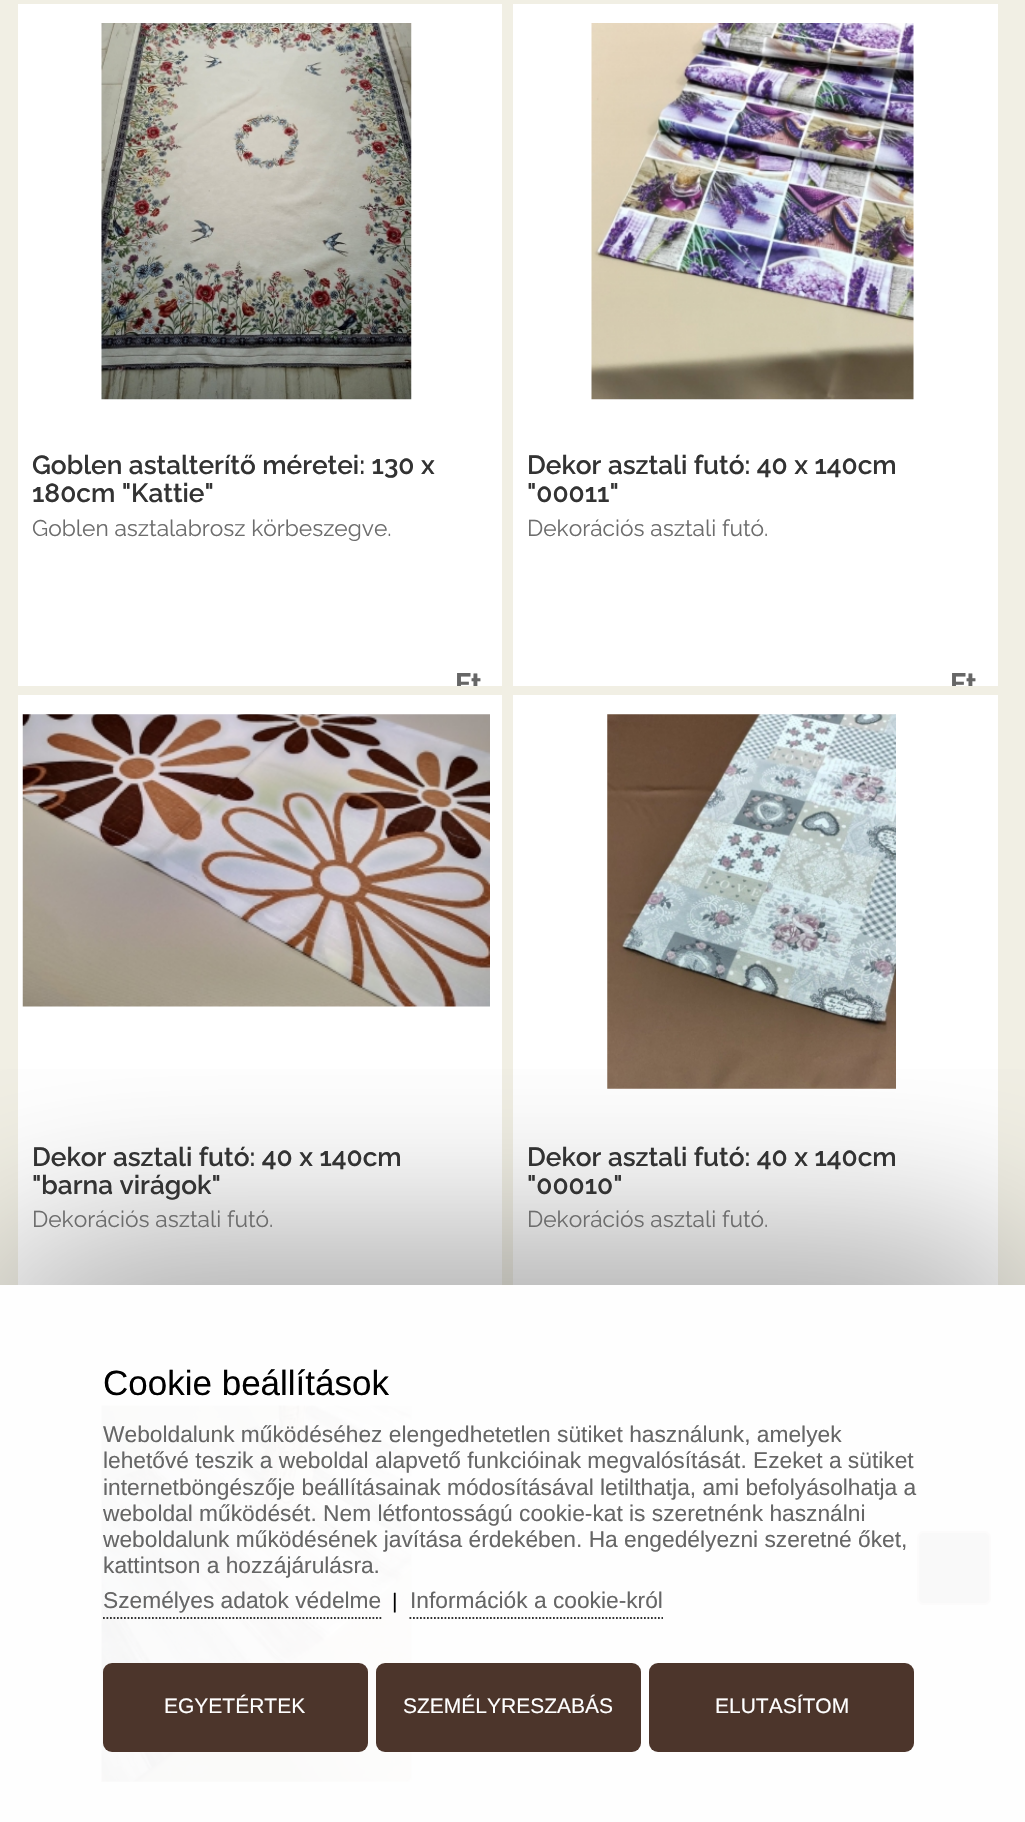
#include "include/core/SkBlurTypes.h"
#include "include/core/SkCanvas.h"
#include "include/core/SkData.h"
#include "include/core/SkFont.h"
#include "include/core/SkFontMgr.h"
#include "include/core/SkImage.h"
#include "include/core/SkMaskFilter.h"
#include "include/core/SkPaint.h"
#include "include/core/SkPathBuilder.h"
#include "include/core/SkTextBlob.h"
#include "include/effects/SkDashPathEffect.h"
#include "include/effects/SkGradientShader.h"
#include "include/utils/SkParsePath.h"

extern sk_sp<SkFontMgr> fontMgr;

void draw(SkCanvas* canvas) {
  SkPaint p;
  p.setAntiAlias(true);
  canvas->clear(SkColorSetRGB(241, 239, 228));
  p.setColor(SkColorSetRGB(254, 254, 254));
  canvas->drawRect(SkRect::MakeLTRB(0, 1285, 1025, 1822), p);
  p.setColor(SK_ColorWHITE);
  canvas->drawRect(SkRect::MakeLTRB(18, 4, 502, 686), p);
  canvas->drawImageRect(SkImages::DeferredFromEncodedData(SkData::MakeFromFileName("images/1.png")), SkRect::MakeLTRB(101, 23, 412, 400), SkSamplingOptions());
  canvas->drawRect(SkRect::MakeLTRB(513, 4, 998, 686), p);
  canvas->drawImageRect(SkImages::DeferredFromEncodedData(SkData::MakeFromFileName("images/2.png")), SkRect::MakeLTRB(591, 23, 914, 400), SkSamplingOptions());
  canvas->drawRect(SkRect::MakeLTRB(18, 695, 502, 1285), p);
  canvas->drawImageRect(SkImages::DeferredFromEncodedData(SkData::MakeFromFileName("images/3.png")), SkRect::MakeLTRB(22, 714, 490, 1007), SkSamplingOptions());
  canvas->drawRect(SkRect::MakeLTRB(513, 695, 998, 1285), p);
  canvas->drawImageRect(SkImages::DeferredFromEncodedData(SkData::MakeFromFileName("images/4.png")), SkRect::MakeLTRB(607, 714, 896, 1089), SkSamplingOptions());
  canvas->drawImageRect(SkImages::DeferredFromEncodedData(SkData::MakeFromFileName("images/5.png")), SkRect::MakeLTRB(101, 1405, 412, 1782), SkSamplingOptions());
  p.setColor(SkColorSetRGB(249, 249, 249));
  canvas->drawRoundRect(SkRect::MakeLTRB(918, 1532, 990, 1604), 6, 6, p);
  p.setStyle(SkPaint::kStroke_Style);
  p.setStrokeWidth(2);
  p.setColor(SkColorSetRGB(252, 251, 251));
  canvas->drawRoundRect(SkRect::MakeLTRB(918, 1532, 990, 1604), 6, 6, p);
  canvas->save();
  canvas->clipRect(SkRect::MakeLTRB(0, 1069, 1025, 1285));
  p.setStyle(SkPaint::kFill_Style);
  p.setColor(SkColorSetRGB(102, 102, 102));
  p.setMaskFilter(SkMaskFilter::MakeBlur(kNormal_SkBlurStyle, 105));
  canvas->drawRect(SkRect::MakeLTRB(0, 1285, 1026, 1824), p);
  p.setMaskFilter(nullptr);
  canvas->restore();
  p.setStyle(SkPaint::kStroke_Style);
  p.setStrokeWidth(1.8f);
  p.setColor(SkColorSetRGB(51, 51, 51));
  p.setPathEffect(SkDashPathEffect::Make({{1.75f, 1.75f}}, 0));
  canvas->drawPath(SkPathBuilder().moveTo(103, 1618).lineTo(381.5f, 1618).detach(), p);
  p.setPathEffect(nullptr);
  p.setPathEffect(SkDashPathEffect::Make({{1.75f, 1.75f}}, 0));
  canvas->drawPath(SkPathBuilder().moveTo(409.5f, 1618).lineTo(663, 1618).detach(), p);
  p.setPathEffect(nullptr);
  p.setStyle(SkPaint::kFill_Style);
  p.setColor(SkColorSetRGB(76, 53, 43));
  canvas->drawRoundRect(SkRect::MakeLTRB(103, 1663, 368, 1752), 9, 9, p);
  canvas->drawRoundRect(SkRect::MakeLTRB(376, 1663, 641, 1752), 9, 9, p);
  canvas->drawRoundRect(SkRect::MakeLTRB(649, 1663, 914, 1752), 9, 9, p);
  SkFont font1(fontMgr->matchFamilyStyle("Raleway", SkFontStyle(600, SkFontStyle::kNormal_Width, SkFontStyle::kUpright_Slant)), 26.25f);
  font1.setSubpixel(true);
  p.setColor(SkColorSetRGB(51, 51, 51));
  canvas->drawString("Goblen astalterítő méretei: 130 x", 32, 474, font1, p);
  canvas->drawString("180cm \"Kattie\"", 32, 502, font1, p);
  SkFont font2(fontMgr->matchFamilyStyle("Raleway", SkFontStyle::Normal()), 22.75f);
  font2.setSubpixel(true);
  p.setColor(SkColorSetRGB(109, 109, 109));
  canvas->drawString("Goblen asztalabrosz körbeszegve.", 32, 536, font2, p);
  canvas->save();
  canvas->clipRect(SkRect::MakeLTRB(18, 4, 502, 686));
  SkFont font3(fontMgr->matchFamilyStyle("Raleway", SkFontStyle::Bold()), 28);
  font3.setSubpixel(true);
  p.setColor(SkColorSetRGB(102, 102, 102));
  canvas->drawString("Ft", 455, 693, font3, p);
  canvas->restore();
  p.setColor(SkColorSetRGB(51, 51, 51));
  canvas->drawString("Dekor asztali futó: 40 x 140cm", 527, 474, font1, p);
  canvas->drawString("\"00011\"", 527, 502, font1, p);
  p.setColor(SkColorSetRGB(109, 109, 109));
  canvas->drawString("Dekorációs asztali futó.", 527, 536, font2, p);
  canvas->save();
  canvas->clipRect(SkRect::MakeLTRB(513, 4, 998, 686));
  p.setColor(SkColorSetRGB(102, 102, 102));
  canvas->drawString("Ft", 950, 693, font3, p);
  canvas->restore();
  p.setColor(SkColorSetRGB(51, 51, 51));
  canvas->drawString("Dekor asztali futó: 40 x 140cm", 32, 1166, font1, p);
  canvas->drawString("\"barna virágok\"", 32, 1194, font1, p);
  p.setColor(SkColorSetRGB(109, 109, 109));
  canvas->drawString("Dekorációs asztali futó.", 32, 1227, font2, p);
  p.setColor(SkColorSetRGB(51, 51, 51));
  canvas->drawString("Dekor asztali futó: 40 x 140cm", 527, 1166, font1, p);
  canvas->drawString("\"00010\"", 527, 1194, font1, p);
  p.setColor(SkColorSetRGB(109, 109, 109));
  canvas->drawString("Dekorációs asztali futó.", 527, 1227, font2, p);
  SkFont font4(fontMgr->matchFamilyStyle("Liberation Sans", SkFontStyle::Normal()), 35);
  font4.setSubpixel(true);
  p.setColor(SK_ColorBLACK);
  canvas->drawString("Cookie beállítások", 103, 1395, font4, p);
  SkFont font5(fontMgr->matchFamilyStyle("Liberation Sans", SkFontStyle::Normal()), 22.75f);
  font5.setSubpixel(true);
  p.setColor(SkColorSetRGB(102, 102, 102));
  canvas->drawString("Weboldalunk működéséhez elengedhetetlen sütiket használunk, amelyek", 103, 1442, font5, p);
  canvas->drawString("lehetővé teszik a weboldal alapvető funkcióinak megvalósítását. Ezeket a sütiket", 103, 1468, font5, p);
  canvas->drawString("internetböngészője beállításainak módosításával letilthatja, ami befolyásolhatja a", 103, 1495, font5, p);
  canvas->drawString("weboldal működését. Nem létfontosságú cookie-kat is szeretnénk használni", 103, 1521, font5, p);
  canvas->drawString("weboldalunk működésének javítása érdekében. Ha engedélyezni szeretné őket,", 103, 1547, font5, p);
  canvas->drawString("kattintson a hozzájárulásra.", 103, 1573, font5, p);
  canvas->drawString("Személyes adatok védelme", 103, 1608, font5, p);
  SkFont font6(fontMgr->matchFamilyStyle("Liberation Sans", SkFontStyle::Normal()), 21);
  font6.setSubpixel(true);
  p.setColor(SK_ColorBLACK);
  canvas->drawString("|", 392, 1608, font6, p);
  p.setColor(SkColorSetRGB(102, 102, 102));
  canvas->drawString("Információk a cookie-król", 410, 1608, font5, p);
  p.setColor(SK_ColorWHITE);
  canvas->drawString("EGYETÉRTEK", 164, 1713, font6, p);
  canvas->drawString("SZEMÉLYRESZABÁS", 403, 1713, font6, p);
  canvas->drawString("ELUTASÍTOM", 715, 1713, font6, p);
}
